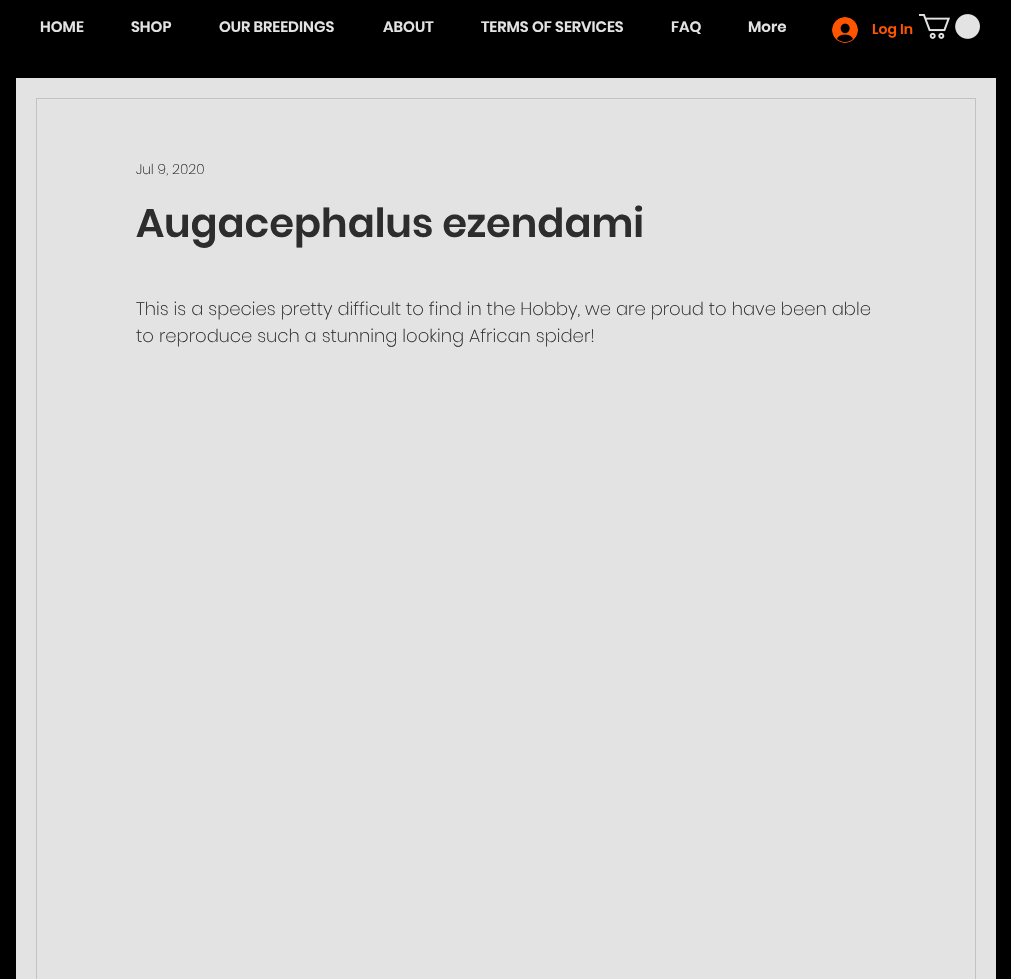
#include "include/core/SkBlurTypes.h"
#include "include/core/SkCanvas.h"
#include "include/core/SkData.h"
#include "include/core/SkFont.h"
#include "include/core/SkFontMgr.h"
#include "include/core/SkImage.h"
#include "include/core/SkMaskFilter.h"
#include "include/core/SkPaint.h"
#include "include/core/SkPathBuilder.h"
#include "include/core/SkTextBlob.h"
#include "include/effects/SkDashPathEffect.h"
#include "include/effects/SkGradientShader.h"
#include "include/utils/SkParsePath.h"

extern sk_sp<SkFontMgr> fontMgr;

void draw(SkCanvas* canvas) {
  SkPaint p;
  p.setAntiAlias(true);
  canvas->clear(SK_ColorBLACK);
  canvas->drawImageRect(SkImages::DeferredFromEncodedData(SkData::MakeFromFileName("images/1.png")), SkRect::MakeLTRB(832, 17, 858, 43), SkSamplingOptions());
  canvas->drawImageRect(SkImages::DeferredFromEncodedData(SkData::MakeFromFileName("images/2.png")), SkRect::MakeLTRB(919, 14, 980, 39), SkSamplingOptions());
  p.setColor(SkColorSetRGB(227, 227, 227));
  canvas->drawRect(SkRect::MakeLTRB(16, 78, 996, 979), p);
  p.setStyle(SkPaint::kStroke_Style);
  p.setStrokeWidth(1);
  p.setColor(SkColorSetRGB(194, 194, 194));
  canvas->drawRect(SkRect::MakeLTRB(36.5f, 98.5f, 975.5f, 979.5f), p);
  SkFont font1(fontMgr->matchFamilyStyle("Poppins", SkFontStyle(600, SkFontStyle::kNormal_Width, SkFontStyle::kUpright_Slant)), 15);
  font1.setSubpixel(true);
  p.setStyle(SkPaint::kFill_Style);
  p.setColor(SkColorSetRGB(227, 227, 227));
  canvas->drawString("HOME", 40, 32, font1, p);
  canvas->drawString("SHOP", 131, 32, font1, p);
  canvas->drawString("OUR BREEDINGS", 219, 32, font1, p);
  canvas->drawString("ABOUT", 383, 32, font1, p);
  canvas->drawString("TERMS OF SERVICES", 481, 32, font1, p);
  canvas->drawString("FAQ", 671, 32, font1, p);
  canvas->drawString("More", 748, 32, font1, p);
  SkFont font2(fontMgr->matchFamilyStyle("Poppins", SkFontStyle(600, SkFontStyle::kNormal_Width, SkFontStyle::kUpright_Slant)), 14);
  font2.setSubpixel(true);
  p.setColor(SkColorSetRGB(255, 84, 0));
  canvas->drawString("Log In", 872, 34, font2, p);
  SkFont font3(fontMgr->matchFamilyStyle("Poppins", SkFontStyle(200, SkFontStyle::kNormal_Width, SkFontStyle::kUpright_Slant)), 14);
  font3.setSubpixel(true);
  p.setColor(SkColorSetRGB(45, 45, 45));
  canvas->drawString("Jul 9, 2020", 136, 174, font3, p);
  SkFont font4(fontMgr->matchFamilyStyle("Poppins", SkFontStyle(600, SkFontStyle::kNormal_Width, SkFontStyle::kUpright_Slant)), 40);
  font4.setSubpixel(true);
  canvas->drawString("Augacephalus ezendami", 136, 237, font4, p);
  SkFont font5(fontMgr->matchFamilyStyle("Poppins", SkFontStyle(200, SkFontStyle::kNormal_Width, SkFontStyle::kUpright_Slant)), 18);
  font5.setSubpixel(true);
  canvas->drawString("This is a species pretty difficult to find in the Hobby, we are proud to have been able", 136, 315, font5, p);
  canvas->drawString("to reproduce such a stunning looking African spider!", 136, 342, font5, p);
}
